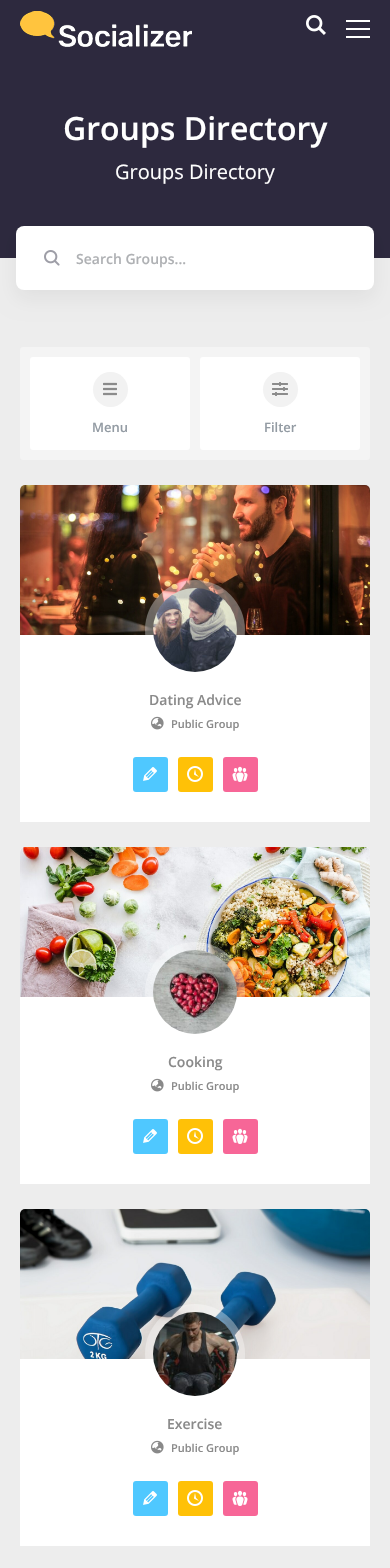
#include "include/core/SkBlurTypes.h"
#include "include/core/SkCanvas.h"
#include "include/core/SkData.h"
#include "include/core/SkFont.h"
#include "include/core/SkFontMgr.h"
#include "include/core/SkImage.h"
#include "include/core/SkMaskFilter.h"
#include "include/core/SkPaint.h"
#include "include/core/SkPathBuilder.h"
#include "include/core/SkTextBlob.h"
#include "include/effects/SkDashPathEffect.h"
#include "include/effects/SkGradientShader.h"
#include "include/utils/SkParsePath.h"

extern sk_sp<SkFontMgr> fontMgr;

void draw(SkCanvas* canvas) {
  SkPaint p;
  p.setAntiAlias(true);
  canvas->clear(SkColorSetRGB(237, 237, 237));
  p.setColor(SkColorSetRGB(45, 41, 62));
  canvas->drawRect(SkRect::MakeLTRB(0, 0, 390, 258), p);
  canvas->drawImageRect(SkImages::DeferredFromEncodedData(SkData::MakeFromFileName("images/1.png")), SkRect::MakeLTRB(20, 11, 192, 47), SkSamplingOptions());
  canvas->drawImageRect(SkImages::DeferredFromEncodedData(SkData::MakeFromFileName("images/2.png")), SkRect::MakeLTRB(306, 15, 326, 35), SkSamplingOptions());
  p.setColor(SK_ColorWHITE);
  canvas->drawRect(SkRect::MakeLTRB(346, 20, 370, 22), p);
  canvas->drawRect(SkRect::MakeLTRB(346, 28, 370, 30), p);
  canvas->drawRect(SkRect::MakeLTRB(346, 36, 370, 38), p);
  p.setColor(SkColorSetARGB(15, 0, 0, 0));
  p.setMaskFilter(SkMaskFilter::MakeBlur(kNormal_SkBlurStyle, 10));
  canvas->drawRoundRect(SkRect::MakeLTRB(16, 234, 374, 298), 8, 8, p);
  p.setMaskFilter(nullptr);
  p.setColor(SK_ColorWHITE);
  canvas->drawRoundRect(SkRect::MakeLTRB(16, 226, 374, 290), 8, 8, p);
  canvas->drawImageRect(SkImages::DeferredFromEncodedData(SkData::MakeFromFileName("images/3.png")), SkRect::MakeLTRB(44, 250, 60, 266), SkSamplingOptions());
  p.setColor(SkColorSetRGB(244, 244, 244));
  canvas->drawRoundRect(SkRect::MakeLTRB(20, 347, 370, 460), 3, 3, p);
  p.setColor(SK_ColorWHITE);
  canvas->drawRoundRect(SkRect::MakeLTRB(30, 357, 190, 450), 3, 3, p);
  p.setColor(SkColorSetRGB(242, 242, 242));
  canvas->drawCircle(110.5f, 389.5f, 17.5f, p);
  canvas->drawImageRect(SkImages::DeferredFromEncodedData(SkData::MakeFromFileName("images/4.png")), SkRect::MakeLTRB(103, 382, 117, 396), SkSamplingOptions());
  p.setColor(SK_ColorWHITE);
  canvas->drawRoundRect(SkRect::MakeLTRB(200, 357, 360, 450), 3, 3, p);
  p.setColor(SkColorSetRGB(242, 242, 242));
  canvas->drawCircle(280.5f, 389.5f, 17.5f, p);
  canvas->drawImageRect(SkImages::DeferredFromEncodedData(SkData::MakeFromFileName("images/5.png")), SkRect::MakeLTRB(272, 382, 288, 396), SkSamplingOptions());
  p.setColor(SK_ColorWHITE);
  canvas->drawPath(SkPathBuilder().moveTo(25, 485).lineTo(365, 485).cubicTo(368, 485, 370, 487, 370, 490).lineTo(370, 822).lineTo(20, 822).lineTo(20, 490).cubicTo(20, 487, 22, 485, 25, 485).close().detach(), p);
  canvas->drawImageRect(SkImages::DeferredFromEncodedData(SkData::MakeFromFileName("images/6.png")), SkRect::MakeLTRB(20, 485, 370, 635), SkSamplingOptions());
  p.setColor(SkColorSetARGB(89, 255, 255, 255));
  canvas->drawCircle(195, 630, 50, p);
  canvas->drawImageRect(SkImages::DeferredFromEncodedData(SkData::MakeFromFileName("images/7.png")), SkRect::MakeLTRB(153, 588, 237, 672), SkSamplingOptions());
  canvas->drawImageRect(SkImages::DeferredFromEncodedData(SkData::MakeFromFileName("images/8.png")), SkRect::MakeLTRB(151, 716, 164, 730), SkSamplingOptions());
  p.setColor(SkColorSetRGB(79, 200, 255));
  canvas->drawRoundRect(SkRect::MakeLTRB(133, 757, 168, 792), 3, 3, p);
  canvas->drawImageRect(SkImages::DeferredFromEncodedData(SkData::MakeFromFileName("images/9.png")), SkRect::MakeLTRB(143, 767, 157, 781), SkSamplingOptions());
  p.setColor(SkColorSetRGB(255, 193, 7));
  canvas->drawRoundRect(SkRect::MakeLTRB(178, 757, 213, 792), 3, 3, p);
  canvas->drawImageRect(SkImages::DeferredFromEncodedData(SkData::MakeFromFileName("images/10.png")), SkRect::MakeLTRB(187, 766, 203, 782), SkSamplingOptions());
  p.setColor(SkColorSetRGB(247, 102, 151));
  canvas->drawRoundRect(SkRect::MakeLTRB(223, 757, 258, 792), 3, 3, p);
  canvas->drawImageRect(SkImages::DeferredFromEncodedData(SkData::MakeFromFileName("images/11.png")), SkRect::MakeLTRB(232, 766, 248, 782), SkSamplingOptions());
  p.setColor(SK_ColorWHITE);
  canvas->drawPath(SkPathBuilder().moveTo(25, 847).lineTo(365, 847).cubicTo(368, 847, 370, 849, 370, 852).lineTo(370, 1184).lineTo(20, 1184).lineTo(20, 852).cubicTo(20, 849, 22, 847, 25, 847).close().detach(), p);
  canvas->drawImageRect(SkImages::DeferredFromEncodedData(SkData::MakeFromFileName("images/12.png")), SkRect::MakeLTRB(20, 847, 370, 997), SkSamplingOptions());
  p.setColor(SkColorSetARGB(89, 255, 255, 255));
  canvas->drawCircle(195, 992, 50, p);
  canvas->drawImageRect(SkImages::DeferredFromEncodedData(SkData::MakeFromFileName("images/13.png")), SkRect::MakeLTRB(153, 950, 237, 1034), SkSamplingOptions());
  canvas->drawImageRect(SkImages::DeferredFromEncodedData(SkData::MakeFromFileName("images/8.png")), SkRect::MakeLTRB(151, 1078, 164, 1092), SkSamplingOptions());
  p.setColor(SkColorSetRGB(79, 200, 255));
  canvas->drawRoundRect(SkRect::MakeLTRB(133, 1119, 168, 1154), 3, 3, p);
  canvas->drawImageRect(SkImages::DeferredFromEncodedData(SkData::MakeFromFileName("images/9.png")), SkRect::MakeLTRB(143, 1129, 157, 1143), SkSamplingOptions());
  p.setColor(SkColorSetRGB(255, 193, 7));
  canvas->drawRoundRect(SkRect::MakeLTRB(178, 1119, 213, 1154), 3, 3, p);
  canvas->drawImageRect(SkImages::DeferredFromEncodedData(SkData::MakeFromFileName("images/10.png")), SkRect::MakeLTRB(187, 1128, 203, 1144), SkSamplingOptions());
  p.setColor(SkColorSetRGB(247, 102, 151));
  canvas->drawRoundRect(SkRect::MakeLTRB(223, 1119, 258, 1154), 3, 3, p);
  canvas->drawImageRect(SkImages::DeferredFromEncodedData(SkData::MakeFromFileName("images/11.png")), SkRect::MakeLTRB(232, 1128, 248, 1144), SkSamplingOptions());
  p.setColor(SK_ColorWHITE);
  canvas->drawPath(SkPathBuilder().moveTo(25, 1209).lineTo(365, 1209).cubicTo(368, 1209, 370, 1211, 370, 1214).lineTo(370, 1546).lineTo(20, 1546).lineTo(20, 1214).cubicTo(20, 1211, 22, 1209, 25, 1209).close().detach(), p);
  canvas->drawImageRect(SkImages::DeferredFromEncodedData(SkData::MakeFromFileName("images/14.png")), SkRect::MakeLTRB(20, 1209, 370, 1359), SkSamplingOptions());
  p.setColor(SkColorSetARGB(89, 255, 255, 255));
  canvas->drawCircle(195, 1354, 50, p);
  canvas->drawImageRect(SkImages::DeferredFromEncodedData(SkData::MakeFromFileName("images/15.png")), SkRect::MakeLTRB(153, 1312, 237, 1396), SkSamplingOptions());
  canvas->drawImageRect(SkImages::DeferredFromEncodedData(SkData::MakeFromFileName("images/8.png")), SkRect::MakeLTRB(151, 1440, 164, 1454), SkSamplingOptions());
  p.setColor(SkColorSetRGB(79, 200, 255));
  canvas->drawRoundRect(SkRect::MakeLTRB(133, 1481, 168, 1516), 3, 3, p);
  canvas->drawImageRect(SkImages::DeferredFromEncodedData(SkData::MakeFromFileName("images/9.png")), SkRect::MakeLTRB(143, 1491, 157, 1505), SkSamplingOptions());
  p.setColor(SkColorSetRGB(255, 193, 7));
  canvas->drawRoundRect(SkRect::MakeLTRB(178, 1481, 213, 1516), 3, 3, p);
  canvas->drawImageRect(SkImages::DeferredFromEncodedData(SkData::MakeFromFileName("images/10.png")), SkRect::MakeLTRB(187, 1490, 203, 1506), SkSamplingOptions());
  p.setColor(SkColorSetRGB(247, 102, 151));
  canvas->drawRoundRect(SkRect::MakeLTRB(223, 1481, 258, 1516), 3, 3, p);
  canvas->drawImageRect(SkImages::DeferredFromEncodedData(SkData::MakeFromFileName("images/11.png")), SkRect::MakeLTRB(232, 1490, 248, 1506), SkSamplingOptions());
  SkFont font1(fontMgr->matchFamilyStyle("Open Sans", SkFontStyle(600, SkFontStyle::kNormal_Width, SkFontStyle::kUpright_Slant)), 32);
  font1.setSubpixel(true);
  p.setColor(SK_ColorWHITE);
  canvas->drawString("Groups Directory", 63, 140, font1, p);
  SkFont font2(fontMgr->matchFamilyStyle("Open Sans", SkFontStyle::Normal()), 20);
  font2.setSubpixel(true);
  canvas->drawString("Groups Directory", 115, 179, font2, p);
  SkFont font3(fontMgr->matchFamilyStyle("Open Sans", SkFontStyle(600, SkFontStyle::kNormal_Width, SkFontStyle::kUpright_Slant)), 14);
  font3.setSubpixel(true);
  p.setColor(SkColorSetRGB(175, 177, 180));
  canvas->drawString("Search Groups...", 76, 264, font3, p);
  SkFont font4(fontMgr->matchFamilyStyle("Open Sans", SkFontStyle(600, SkFontStyle::kNormal_Width, SkFontStyle::kUpright_Slant)), 13);
  font4.setSubpixel(true);
  p.setColor(SkColorSetRGB(147, 155, 163));
  canvas->drawString("Menu", 92, 432, font4, p);
  canvas->drawString("Filter", 264, 432, font4, p);
  p.setColor(SkColorSetRGB(138, 138, 138));
  canvas->drawString("Dating Advice", 149, 705, font3, p);
  SkFont font5(fontMgr->matchFamilyStyle("Open Sans", SkFontStyle(600, SkFontStyle::kNormal_Width, SkFontStyle::kUpright_Slant)), 11);
  font5.setSubpixel(true);
  canvas->drawString("Public Group", 171, 728, font5, p);
  canvas->drawString("Cooking", 168, 1067, font3, p);
  canvas->drawString("Public Group", 171, 1090, font5, p);
  canvas->drawString("Exercise", 167, 1429, font3, p);
  canvas->drawString("Public Group", 171, 1452, font5, p);
}
